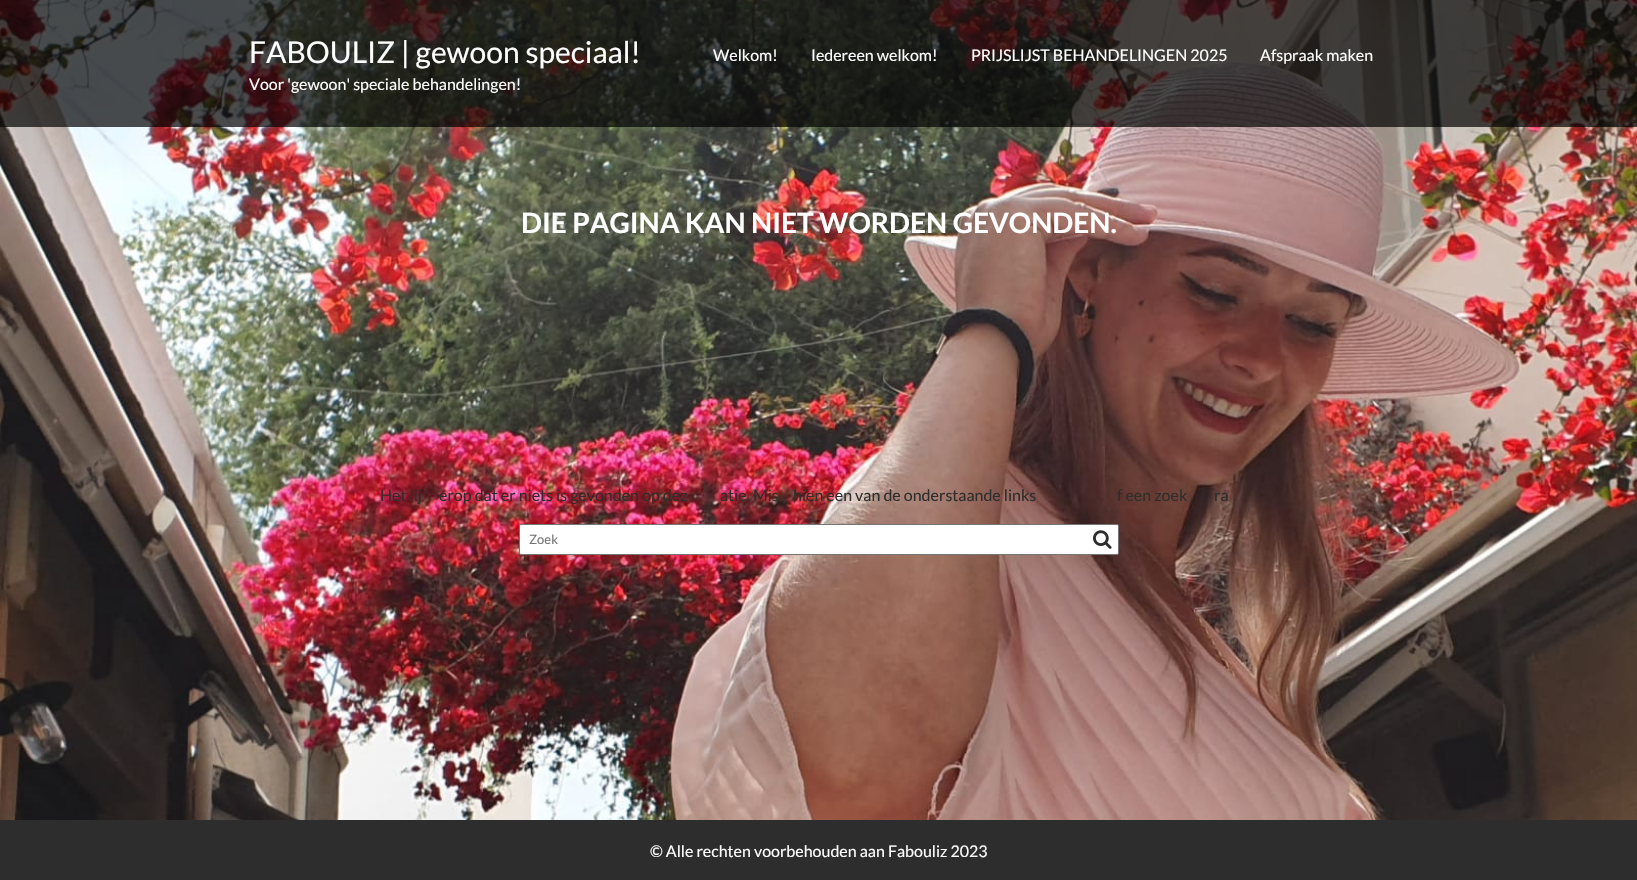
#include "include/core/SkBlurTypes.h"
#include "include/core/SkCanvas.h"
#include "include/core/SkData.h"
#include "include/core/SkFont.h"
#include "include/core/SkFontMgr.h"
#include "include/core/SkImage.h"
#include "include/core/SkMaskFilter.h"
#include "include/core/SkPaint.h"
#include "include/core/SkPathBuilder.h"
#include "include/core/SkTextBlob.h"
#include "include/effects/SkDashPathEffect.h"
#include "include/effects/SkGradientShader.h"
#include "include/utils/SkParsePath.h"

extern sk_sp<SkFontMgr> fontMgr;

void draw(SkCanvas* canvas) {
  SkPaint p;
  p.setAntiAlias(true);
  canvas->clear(SK_ColorWHITE);
  canvas->drawImageRect(SkImages::DeferredFromEncodedData(SkData::MakeFromFileName("images/1.png")), SkRect::MakeLTRB(0, 300, 1637, 820), SkSamplingOptions());
  canvas->drawImageRect(SkImages::DeferredFromEncodedData(SkData::MakeFromFileName("images/2.png")), SkRect::MakeLTRB(0, 0, 1637, 300), SkSamplingOptions());
  p.setColor(SkColorSetARGB(179, 0, 0, 0));
  canvas->drawRect(SkRect::MakeLTRB(0, 0, 1637, 127), p);
  p.setColor(SK_ColorWHITE);
  canvas->drawRoundRect(SkRect::MakeLTRB(519.5f, 524.5f, 1118.5f, 554.5f), 1.5f, 1.5f, p);
  p.setStyle(SkPaint::kStroke_Style);
  p.setStrokeWidth(1);
  p.setColor(SkColorSetRGB(118, 118, 118));
  canvas->drawRoundRect(SkRect::MakeLTRB(519.5f, 524.5f, 1118.5f, 554.5f), 1.5f, 1.5f, p);
  canvas->drawImageRect(SkImages::DeferredFromEncodedData(SkData::MakeFromFileName("images/3.png")), SkRect::MakeLTRB(1093, 530, 1112, 549), SkSamplingOptions());
  p.setStyle(SkPaint::kFill_Style);
  p.setColor(SkColorSetRGB(45, 45, 45));
  canvas->drawRect(SkRect::MakeLTRB(0, 820, 1637, 880), p);
  SkFont font1(fontMgr->matchFamilyStyle("Lato", SkFontStyle::Normal()), 30);
  font1.setSubpixel(true);
  p.setColor(SK_ColorWHITE);
  canvas->drawString("FABOULIZ | gewoon speciaal!", 249, 63, font1, p);
  SkFont font2(fontMgr->matchFamilyStyle("Lato", SkFontStyle::Normal()), 16);
  font2.setSubpixel(true);
  canvas->drawString("Voor 'gewoon' speciale behandelingen!", 249, 90, font2, p);
  canvas->drawString("Welkom!", 713, 61, font2, p);
  canvas->drawString("Iedereen welkom!", 811, 61, font2, p);
  canvas->drawString("PRIJSLIJST BEHANDELINGEN 2025", 971, 61, font2, p);
  canvas->drawString("Afspraak maken", 1260, 61, font2, p);
  SkFont font3(fontMgr->matchFamilyStyle("Lato", SkFontStyle::Bold()), 28);
  font3.setSubpixel(true);
  canvas->drawString("DIE PAGINA KAN NIET WORDEN GEVONDEN.", 521, 233, font3, p);
  p.setColor(SkColorSetRGB(45, 45, 45));
  canvas->drawString("Het lij", 380, 501, font2, p);
  canvas->drawString("erop dat er niets is gevonden op dez", 439, 501, font2, p);
  canvas->drawString("atie. Mis", 720, 501, font2, p);
  canvas->drawString("hien een van de onderstaande links", 793, 501, font2, p);
  canvas->drawString("f een zoek", 1117, 501, font2, p);
  canvas->drawString("ra", 1214, 501, font2, p);
  SkFont font4(fontMgr->matchFamilyStyle("Lato", SkFontStyle::Normal()), 13);
  font4.setSubpixel(true);
  p.setColor(SkColorSetRGB(117, 117, 117));
  canvas->drawString("Zoek", 529, 544, font4, p);
  p.setColor(SK_ColorWHITE);
  canvas->drawString("© Alle rechten voorbehouden aan Fabouliz 2023", 650, 857, font2, p);
}
